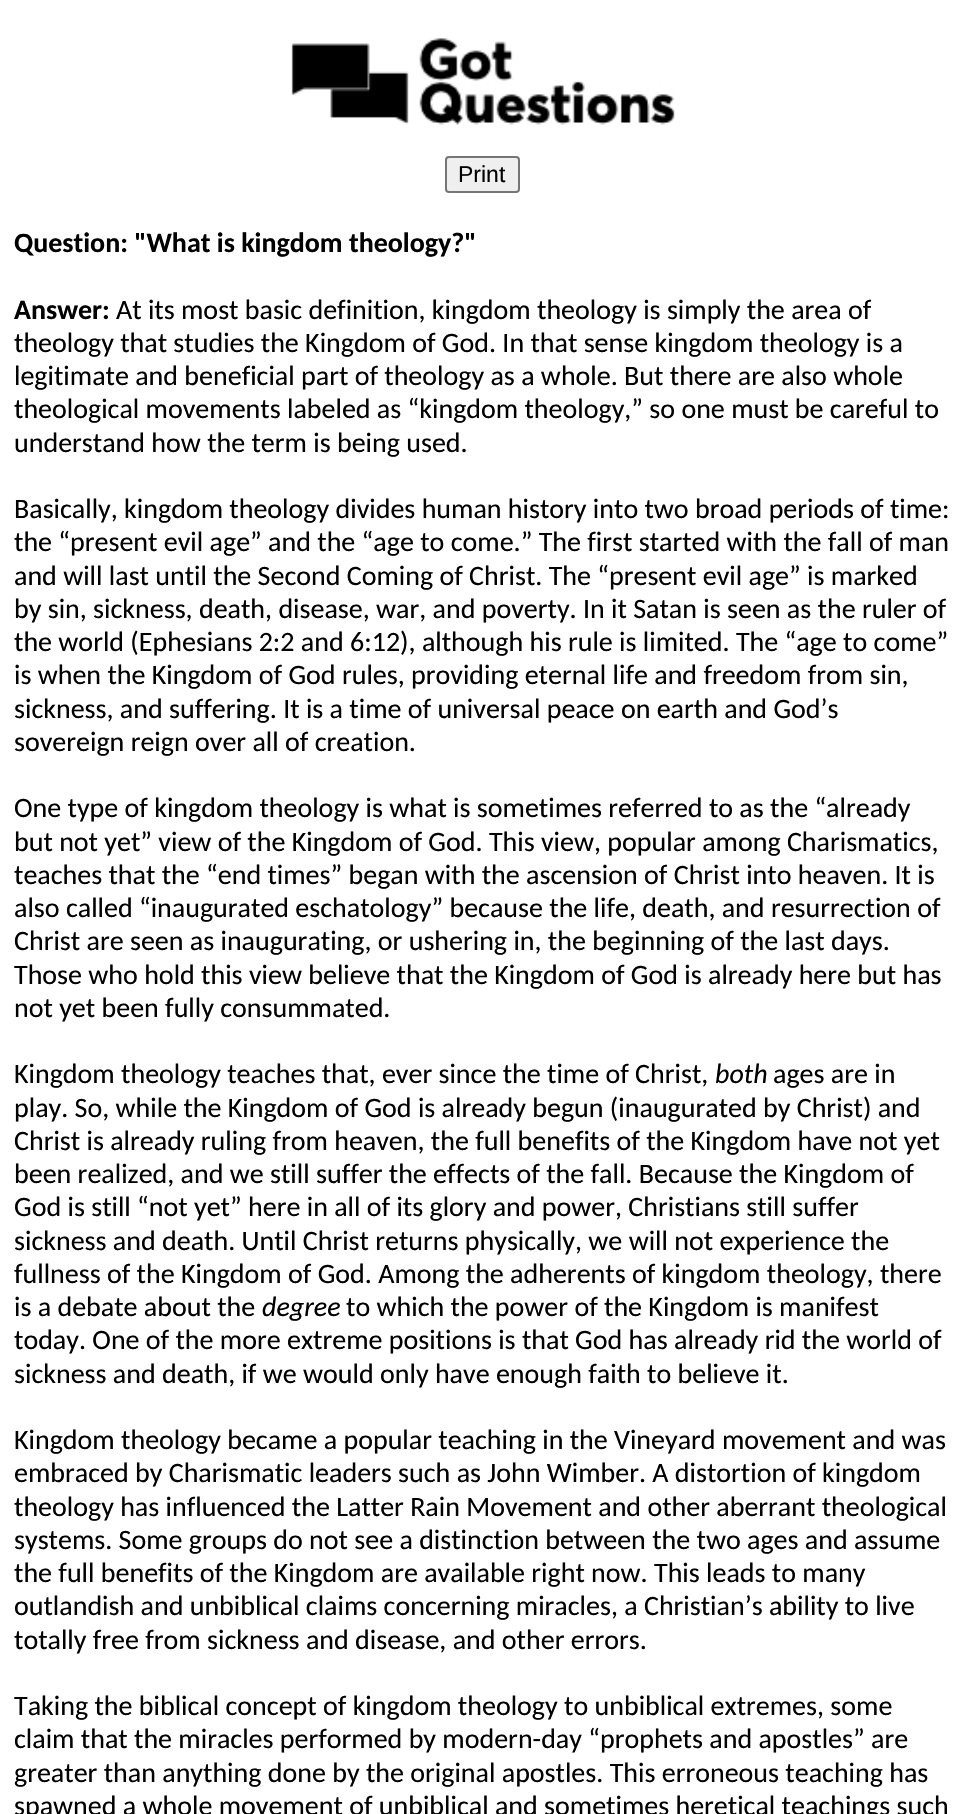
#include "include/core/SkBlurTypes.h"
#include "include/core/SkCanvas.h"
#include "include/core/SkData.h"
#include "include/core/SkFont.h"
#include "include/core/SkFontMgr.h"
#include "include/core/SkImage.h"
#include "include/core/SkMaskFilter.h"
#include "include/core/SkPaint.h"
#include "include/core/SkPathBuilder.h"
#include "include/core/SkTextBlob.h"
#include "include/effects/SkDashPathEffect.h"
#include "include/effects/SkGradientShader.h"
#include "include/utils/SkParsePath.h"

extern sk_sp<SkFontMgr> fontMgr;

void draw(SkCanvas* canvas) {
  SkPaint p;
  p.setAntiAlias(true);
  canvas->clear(SK_ColorWHITE);
  canvas->drawImageRect(SkImages::DeferredFromEncodedData(SkData::MakeFromFileName("images/1.png")), SkRect::MakeLTRB(291, 38, 675, 125), SkSamplingOptions());
  p.setColor(SkColorSetRGB(239, 239, 239));
  canvas->drawRoundRect(SkRect::MakeLTRB(446, 157, 519, 192), 3, 3, p);
  p.setStyle(SkPaint::kStroke_Style);
  p.setStrokeWidth(2);
  p.setColor(SkColorSetRGB(118, 118, 118));
  canvas->drawRoundRect(SkRect::MakeLTRB(446, 157, 519, 192), 3, 3, p);
  SkFont font1(fontMgr->matchFamilyStyle("Liberation Sans", SkFontStyle::Normal()), 23);
  font1.setSubpixel(true);
  p.setStyle(SkPaint::kFill_Style);
  p.setColor(SK_ColorBLACK);
  canvas->drawString("Print", 458, 182, font1, p);
  SkFont font2(fontMgr->matchFamilyStyle("Carlito", SkFontStyle::Bold()), 28);
  font2.setSubpixel(true);
  canvas->drawString("Question: \"What is kingdom theology?\"", 14, 252, font2, p);
  canvas->drawString("Answer:", 14, 319, font2, p);
  SkFont font3(fontMgr->matchFamilyStyle("Carlito", SkFontStyle::Normal()), 28);
  font3.setSubpixel(true);
  canvas->drawString("At its most basic definition, kingdom theology is simply the area of", 116, 319, font3, p);
  canvas->drawString("theology that studies the Kingdom of God. In that sense kingdom theology is a", 14, 352, font3, p);
  canvas->drawString("legitimate and beneficial part of theology as a whole. But there are also whole", 14, 385, font3, p);
  canvas->drawString("theological movements labeled as “kingdom theology,” so one must be careful to", 14, 418, font3, p);
  canvas->drawString("understand how the term is being used.", 14, 452, font3, p);
  canvas->drawString("Basically, kingdom theology divides human history into two broad periods of time:", 14, 518, font3, p);
  canvas->drawString("the “present evil age” and the “age to come.” The first started with the fall of man", 14, 551, font3, p);
  canvas->drawString("and will last until the Second Coming of Christ. The “present evil age” is marked", 14, 585, font3, p);
  canvas->drawString("by sin, sickness, death, disease, war, and poverty. In it Satan is seen as the ruler of", 14, 618, font3, p);
  canvas->drawString("the world (Ephesians 2:2 and 6:12), although his rule is limited. The “age to come”", 14, 651, font3, p);
  canvas->drawString("is when the Kingdom of God rules, providing eternal life and freedom from sin,", 14, 684, font3, p);
  canvas->drawString("sickness, and suffering. It is a time of universal peace on earth and God’s", 14, 718, font3, p);
  canvas->drawString("sovereign reign over all of creation.", 14, 751, font3, p);
  canvas->drawString("One type of kingdom theology is what is sometimes referred to as the “already", 14, 817, font3, p);
  canvas->drawString("but not yet” view of the Kingdom of God. This view, popular among Charismatics,", 14, 851, font3, p);
  canvas->drawString("teaches that the “end times” began with the ascension of Christ into heaven. It is", 14, 884, font3, p);
  canvas->drawString("also called “inaugurated eschatology” because the life, death, and resurrection of", 14, 917, font3, p);
  canvas->drawString("Christ are seen as inaugurating, or ushering in, the beginning of the last days.", 14, 950, font3, p);
  canvas->drawString("Those who hold this view believe that the Kingdom of God is already here but has", 14, 984, font3, p);
  canvas->drawString("not yet been fully consummated.", 14, 1017, font3, p);
  canvas->drawString("Kingdom theology teaches that, ever since the time of Christ,", 14, 1083, font3, p);
  SkFont font4(fontMgr->matchFamilyStyle("Carlito", SkFontStyle::Italic()), 28);
  font4.setSubpixel(true);
  canvas->drawString("both", 715, 1083, font4, p);
  canvas->drawString("ages are in", 773, 1083, font3, p);
  canvas->drawString("play. So, while the Kingdom of God is already begun (inaugurated by Christ) and", 14, 1117, font3, p);
  canvas->drawString("Christ is already ruling from heaven, the full benefits of the Kingdom have not yet", 14, 1150, font3, p);
  canvas->drawString("been realized, and we still suffer the effects of the fall. Because the Kingdom of", 14, 1183, font3, p);
  canvas->drawString("God is still “not yet” here in all of its glory and power, Christians still suffer", 14, 1216, font3, p);
  canvas->drawString("sickness and death. Until Christ returns physically, we will not experience the", 14, 1250, font3, p);
  canvas->drawString("fullness of the Kingdom of God. Among the adherents of kingdom theology, there", 14, 1283, font3, p);
  canvas->drawString("is a debate about the", 14, 1316, font3, p);
  canvas->drawString("degree", 262, 1316, font4, p);
  canvas->drawString("to which the power of the Kingdom is manifest", 346, 1316, font3, p);
  canvas->drawString("today. One of the more extreme positions is that God has already rid the world of", 14, 1349, font3, p);
  canvas->drawString("sickness and death, if we would only have enough faith to believe it.", 14, 1383, font3, p);
  canvas->drawString("Kingdom theology became a popular teaching in the Vineyard movement and was", 14, 1449, font3, p);
  canvas->drawString("embraced by Charismatic leaders such as John Wimber. A distortion of kingdom", 14, 1482, font3, p);
  canvas->drawString("theology has influenced the Latter Rain Movement and other aberrant theological", 14, 1516, font3, p);
  canvas->drawString("systems. Some groups do not see a distinction between the two ages and assume", 14, 1549, font3, p);
  canvas->drawString("the full benefits of the Kingdom are available right now. This leads to many", 14, 1582, font3, p);
  canvas->drawString("outlandish and unbiblical claims concerning miracles, a Christian’s ability to live", 14, 1615, font3, p);
  canvas->drawString("totally free from sickness and disease, and other errors.", 14, 1649, font3, p);
  canvas->drawString("Taking the biblical concept of kingdom theology to unbiblical extremes, some", 14, 1715, font3, p);
  canvas->drawString("claim that the miracles performed by modern-day “prophets and apostles” are", 14, 1748, font3, p);
  canvas->drawString("greater than anything done by the original apostles. This erroneous teaching has", 14, 1782, font3, p);
  canvas->drawString("spawned a whole movement of unbiblical and sometimes heretical teachings such", 14, 1815, font3, p);
}
